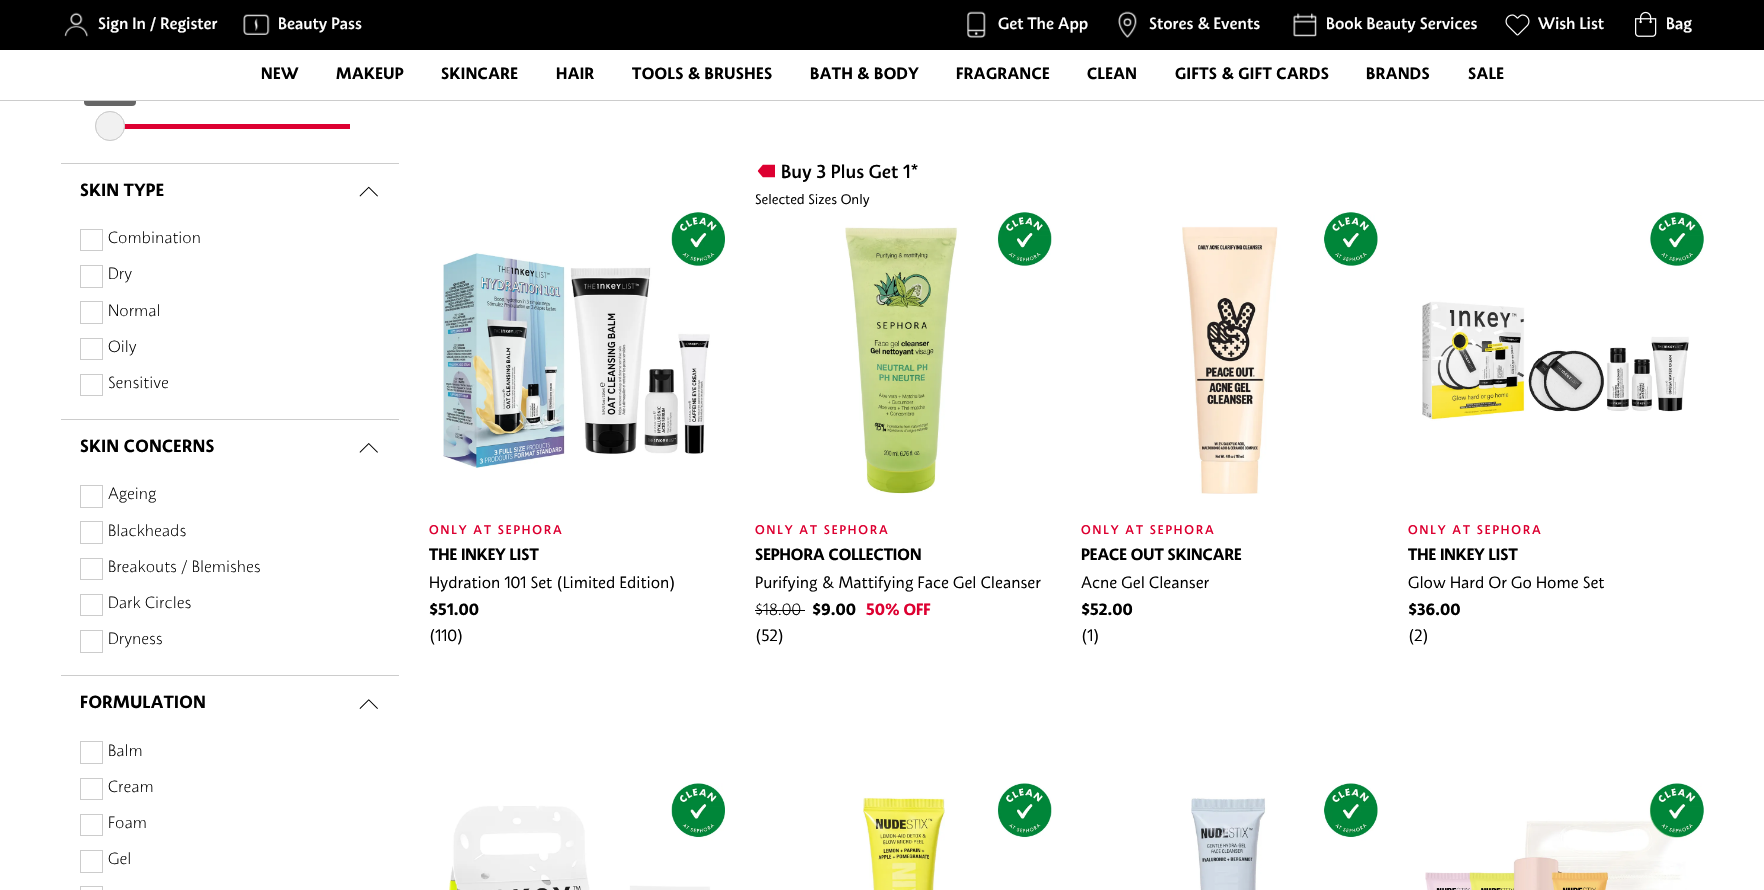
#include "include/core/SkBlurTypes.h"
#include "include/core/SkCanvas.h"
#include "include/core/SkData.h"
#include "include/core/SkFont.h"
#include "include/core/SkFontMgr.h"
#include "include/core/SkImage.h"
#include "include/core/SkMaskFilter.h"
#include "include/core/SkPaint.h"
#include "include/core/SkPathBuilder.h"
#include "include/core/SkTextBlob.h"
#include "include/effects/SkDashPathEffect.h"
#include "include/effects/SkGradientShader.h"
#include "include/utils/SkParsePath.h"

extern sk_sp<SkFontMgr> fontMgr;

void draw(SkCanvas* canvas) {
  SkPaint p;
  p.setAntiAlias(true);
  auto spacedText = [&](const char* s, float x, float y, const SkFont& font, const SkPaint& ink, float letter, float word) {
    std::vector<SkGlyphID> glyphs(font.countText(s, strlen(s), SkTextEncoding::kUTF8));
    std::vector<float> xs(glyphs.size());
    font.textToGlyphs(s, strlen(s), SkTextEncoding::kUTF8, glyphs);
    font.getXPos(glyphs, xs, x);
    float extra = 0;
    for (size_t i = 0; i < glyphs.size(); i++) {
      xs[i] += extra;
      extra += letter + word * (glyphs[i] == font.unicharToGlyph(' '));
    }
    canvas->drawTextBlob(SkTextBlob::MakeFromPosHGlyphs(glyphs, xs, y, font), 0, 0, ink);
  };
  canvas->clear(SK_ColorWHITE);
  p.setColor(SK_ColorBLACK);
  canvas->drawRect(SkRect::MakeLTRB(0, 0, 1764, 50), p);
  canvas->drawImageRect(SkImages::DeferredFromEncodedData(SkData::MakeFromFileName("images/1.png")), SkRect::MakeLTRB(64, 12, 89, 37), SkSamplingOptions());
  canvas->drawImageRect(SkImages::DeferredFromEncodedData(SkData::MakeFromFileName("images/2.png")), SkRect::MakeLTRB(243, 14, 270, 35), SkSamplingOptions());
  canvas->drawImageRect(SkImages::DeferredFromEncodedData(SkData::MakeFromFileName("images/3.png")), SkRect::MakeLTRB(967, 11, 986, 38), SkSamplingOptions());
  canvas->drawImageRect(SkImages::DeferredFromEncodedData(SkData::MakeFromFileName("images/4.png")), SkRect::MakeLTRB(1118, 11, 1137, 38), SkSamplingOptions());
  canvas->drawImageRect(SkImages::DeferredFromEncodedData(SkData::MakeFromFileName("images/5.png")), SkRect::MakeLTRB(1293, 12, 1317, 37), SkSamplingOptions());
  canvas->drawImageRect(SkImages::DeferredFromEncodedData(SkData::MakeFromFileName("images/6.png")), SkRect::MakeLTRB(1505, 14, 1530, 36), SkSamplingOptions());
  canvas->drawImageRect(SkImages::DeferredFromEncodedData(SkData::MakeFromFileName("images/7.png")), SkRect::MakeLTRB(1635, 11, 1657, 37), SkSamplingOptions());
  p.setColor(SkColorSetRGB(102, 102, 102));
  canvas->drawRoundRect(SkRect::MakeLTRB(84, 78, 136, 106), 4, 4, p);
  p.setColor(SK_ColorWHITE);
  canvas->drawRect(SkRect::MakeLTRB(84, 78, 136, 100), p);
  p.setColor(SkColorSetRGB(204, 204, 204));
  canvas->drawRect(SkRect::MakeLTRB(0, 100, 1764, 101), p);
  canvas->drawRect(SkRect::MakeLTRB(61, 163, 399, 164), p);
  p.setColor(SkColorSetRGB(221, 0, 49));
  canvas->drawRect(SkRect::MakeLTRB(124, 124, 350, 129), p);
  p.setStyle(SkPaint::kStroke_Style);
  p.setStrokeWidth(1);
  p.setColor(SkColorSetRGB(204, 204, 204));
  canvas->drawCircle(110, 126, 14.5f, p);
  p.setStyle(SkPaint::kFill_Style);
  p.setColor(SkColorSetRGB(241, 241, 241));
  canvas->drawCircle(110, 126, 14.5f, p);
  p.setStyle(SkPaint::kStroke_Style);
  p.setColor(SkColorSetRGB(204, 204, 204));
  canvas->drawCircle(110, 126, 14.5f, p);
  p.setStyle(SkPaint::kFill_Style);
  canvas->drawRect(SkRect::MakeLTRB(61, 419, 399, 420), p);
  canvas->drawImageRect(SkImages::DeferredFromEncodedData(SkData::MakeFromFileName("images/8.png")), SkRect::MakeLTRB(359, 186, 378, 197), SkSamplingOptions());
  p.setStyle(SkPaint::kStroke_Style);
  canvas->drawRect(SkRect::MakeLTRB(80.5f, 229.5f, 102.5f, 250.5f), p);
  canvas->drawRect(SkRect::MakeLTRB(80.5f, 265.5f, 102.5f, 287.5f), p);
  canvas->drawRect(SkRect::MakeLTRB(80.5f, 301.5f, 102.5f, 323.5f), p);
  canvas->drawRect(SkRect::MakeLTRB(80.5f, 338.5f, 102.5f, 359.5f), p);
  canvas->drawRect(SkRect::MakeLTRB(80.5f, 374.5f, 102.5f, 395.5f), p);
  p.setStyle(SkPaint::kFill_Style);
  canvas->drawRect(SkRect::MakeLTRB(61, 675, 399, 676), p);
  canvas->drawImageRect(SkImages::DeferredFromEncodedData(SkData::MakeFromFileName("images/9.png")), SkRect::MakeLTRB(359, 443, 378, 453), SkSamplingOptions());
  p.setStyle(SkPaint::kStroke_Style);
  canvas->drawRect(SkRect::MakeLTRB(80.5f, 485.5f, 102.5f, 507.5f), p);
  canvas->drawRect(SkRect::MakeLTRB(80.5f, 521.5f, 102.5f, 543.5f), p);
  canvas->drawRect(SkRect::MakeLTRB(80.5f, 558.5f, 102.5f, 579.5f), p);
  canvas->drawRect(SkRect::MakeLTRB(80.5f, 594.5f, 102.5f, 615.5f), p);
  canvas->drawRect(SkRect::MakeLTRB(80.5f, 630.5f, 102.5f, 652.5f), p);
  canvas->drawImageRect(SkImages::DeferredFromEncodedData(SkData::MakeFromFileName("images/10.png")), SkRect::MakeLTRB(359, 699, 378, 709), SkSamplingOptions());
  canvas->drawRect(SkRect::MakeLTRB(80.5f, 741.5f, 102.5f, 763.5f), p);
  canvas->drawRect(SkRect::MakeLTRB(80.5f, 778.5f, 102.5f, 799.5f), p);
  canvas->drawRect(SkRect::MakeLTRB(80.5f, 814.5f, 102.5f, 835.5f), p);
  canvas->drawRect(SkRect::MakeLTRB(80.5f, 850.5f, 102.5f, 872.5f), p);
  canvas->drawRect(SkRect::MakeLTRB(80.5f, 886.5f, 102.5f, 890.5f), p);
  canvas->drawImageRect(SkImages::DeferredFromEncodedData(SkData::MakeFromFileName("images/11.png")), SkRect::MakeLTRB(443, 212, 725, 468), SkSamplingOptions());
  canvas->drawImageRect(SkImages::DeferredFromEncodedData(SkData::MakeFromFileName("images/12.png")), SkRect::MakeLTRB(757, 164, 775, 178), SkSamplingOptions());
  canvas->drawImageRect(SkImages::DeferredFromEncodedData(SkData::MakeFromFileName("images/13.png")), SkRect::MakeLTRB(845, 212, 1052, 494), SkSamplingOptions());
  p.setStyle(SkPaint::kFill_Style);
  p.setColor(SK_ColorBLACK);
  canvas->drawRect(SkRect::MakeLTRB(755, 610, 805, 611), p);
  canvas->drawImageRect(SkImages::DeferredFromEncodedData(SkData::MakeFromFileName("images/14.png")), SkRect::MakeLTRB(1182, 212, 1378, 494), SkSamplingOptions());
  canvas->drawImageRect(SkImages::DeferredFromEncodedData(SkData::MakeFromFileName("images/15.png")), SkRect::MakeLTRB(1422, 212, 1704, 421), SkSamplingOptions());
  canvas->drawImageRect(SkImages::DeferredFromEncodedData(SkData::MakeFromFileName("images/16.png")), SkRect::MakeLTRB(449, 783, 725, 890), SkSamplingOptions());
  canvas->drawImageRect(SkImages::DeferredFromEncodedData(SkData::MakeFromFileName("images/17.png")), SkRect::MakeLTRB(863, 783, 1052, 890), SkSamplingOptions());
  canvas->drawImageRect(SkImages::DeferredFromEncodedData(SkData::MakeFromFileName("images/18.png")), SkRect::MakeLTRB(1191, 783, 1378, 890), SkSamplingOptions());
  canvas->drawImageRect(SkImages::DeferredFromEncodedData(SkData::MakeFromFileName("images/19.png")), SkRect::MakeLTRB(1425, 783, 1704, 890), SkSamplingOptions());
  SkFont font1(fontMgr->matchFamilyStyle("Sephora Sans", SkFontStyle(500, SkFontStyle::kNormal_Width, SkFontStyle::kUpright_Slant)), 16.25f);
  font1.setSubpixel(true);
  p.setColor(SK_ColorWHITE);
  canvas->drawString("Sign In / Register", 98, 29, font1, p);
  canvas->drawString("Beauty Pass", 278, 29, font1, p);
  canvas->drawString("Get The App", 998, 29, font1, p);
  canvas->drawString("Stores & Events", 1149, 29, font1, p);
  canvas->drawString("Book Beauty Services", 1326, 29, font1, p);
  canvas->drawString("Wish List", 1538, 29, font1, p);
  canvas->drawString("Bag", 1666, 29, font1, p);
  SkFont font2(fontMgr->matchFamilyStyle("Sephora Sans", SkFontStyle::Bold()), 16.25f);
  font2.setSubpixel(true);
  p.setColor(SK_ColorBLACK);
  spacedText("NEW", 261, 79, font2, p, 0.4f, 0);
  spacedText("MAKEUP", 336, 79, font2, p, 0.4f, 0);
  spacedText("SKINCARE", 441, 79, font2, p, 0.4f, 0);
  spacedText("HAIR", 556, 79, font2, p, 0.4f, 0);
  spacedText("TOOLS & BRUSHES", 632, 79, font2, p, 0.4f, 0);
  spacedText("BATH & BODY", 810, 79, font2, p, 0.4f, 0);
  spacedText("FRAGRANCE", 956, 79, font2, p, 0.4f, 0);
  spacedText("CLEAN", 1087, 79, font2, p, 0.4f, 0);
  spacedText("GIFTS & GIFT CARDS", 1175, 79, font2, p, 0.4f, 0);
  spacedText("BRANDS", 1366, 79, font2, p, 0.4f, 0);
  spacedText("SALE", 1468, 79, font2, p, 0.4f, 0);
  SkFont font3(fontMgr->matchFamilyStyle("Sephora Sans", SkFontStyle::Bold()), 17.5f);
  font3.setSubpixel(true);
  spacedText("SKIN TYPE", 80, 196, font3, p, 0.4f, 0);
  SkFont font4(fontMgr->matchFamilyStyle("Sephora Sans", SkFontStyle(300, SkFontStyle::kNormal_Width, SkFontStyle::kUpright_Slant)), 16.25f);
  font4.setSubpixel(true);
  canvas->drawString("Combination", 108, 243, font4, p);
  canvas->drawString("Dry", 108, 279, font4, p);
  canvas->drawString("Normal", 108, 316, font4, p);
  canvas->drawString("Oily", 108, 352, font4, p);
  canvas->drawString("Sensitive", 108, 388, font4, p);
  spacedText("SKIN CONCERNS", 80, 452, font3, p, 0.4f, 0);
  canvas->drawString("Ageing", 108, 499, font4, p);
  canvas->drawString("Blackheads", 108, 536, font4, p);
  canvas->drawString("Breakouts / Blemishes", 108, 572, font4, p);
  canvas->drawString("Dark Circles", 108, 608, font4, p);
  canvas->drawString("Dryness", 108, 644, font4, p);
  spacedText("FORMULATION", 80, 708, font3, p, 0.4f, 0);
  canvas->drawString("Balm", 108, 756, font4, p);
  canvas->drawString("Cream", 108, 792, font4, p);
  canvas->drawString("Foam", 108, 828, font4, p);
  canvas->drawString("Gel", 108, 864, font4, p);
  SkFont font5(fontMgr->matchFamilyStyle("Sephora Sans", SkFontStyle(500, SkFontStyle::kNormal_Width, SkFontStyle::kUpright_Slant)), 12.5f);
  font5.setSubpixel(true);
  p.setColor(SkColorSetRGB(221, 0, 49));
  spacedText("ONLY AT SEPHORA", 429, 534, font5, p, 1.9f, 0);
  p.setColor(SK_ColorBLACK);
  canvas->drawString("THE INKEY LIST", 429, 560, font2, p);
  SkFont font6(fontMgr->matchFamilyStyle("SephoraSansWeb", SkFontStyle::Normal()), 16.25f);
  font6.setSubpixel(true);
  canvas->drawString("Hydration 101 Set (Limited Edition)", 429, 588, font6, p);
  canvas->drawString("$51.00", 429, 615, font2, p);
  canvas->drawString("(110)", 429, 641, font6, p);
  SkFont font7(fontMgr->matchFamilyStyle("Sephora Sans", SkFontStyle(500, SkFontStyle::kNormal_Width, SkFontStyle::kUpright_Slant)), 18.75f);
  font7.setSubpixel(true);
  canvas->drawString("Buy 3 Plus Get 1*", 781, 178, font7, p);
  SkFont font8(fontMgr->matchFamilyStyle("SephoraSansWeb", SkFontStyle::Normal()), 13.75f);
  font8.setSubpixel(true);
  canvas->drawString("Selected Sizes Only", 755, 204, font8, p);
  p.setColor(SkColorSetRGB(221, 0, 49));
  spacedText("ONLY AT SEPHORA", 755, 534, font5, p, 1.9f, 0);
  p.setColor(SK_ColorBLACK);
  canvas->drawString("SEPHORA COLLECTION", 755, 560, font2, p);
  canvas->drawString("Purifying & Mattifying Face Gel Cleanser", 755, 588, font6, p);
  canvas->drawString("$18.00", 755, 615, font4, p);
  canvas->drawString("$9.00", 812, 615, font2, p);
  p.setColor(SkColorSetRGB(221, 0, 49));
  canvas->drawString("50% OFF", 866, 615, font2, p);
  p.setColor(SK_ColorBLACK);
  canvas->drawString("(52)", 755, 641, font6, p);
  p.setColor(SkColorSetRGB(221, 0, 49));
  spacedText("ONLY AT SEPHORA", 1081, 534, font5, p, 1.9f, 0);
  p.setColor(SK_ColorBLACK);
  canvas->drawString("PEACE OUT SKINCARE", 1081, 560, font2, p);
  canvas->drawString("Acne Gel Cleanser", 1081, 588, font6, p);
  canvas->drawString("$52.00", 1081, 615, font2, p);
  canvas->drawString("(1)", 1081, 641, font6, p);
  p.setColor(SkColorSetRGB(221, 0, 49));
  spacedText("ONLY AT SEPHORA", 1408, 534, font5, p, 1.9f, 0);
  p.setColor(SK_ColorBLACK);
  canvas->drawString("THE INKEY LIST", 1408, 560, font2, p);
  canvas->drawString("Glow Hard Or Go Home Set", 1408, 588, font6, p);
  canvas->drawString("$36.00", 1408, 615, font2, p);
  canvas->drawString("(2)", 1408, 641, font6, p);
}
